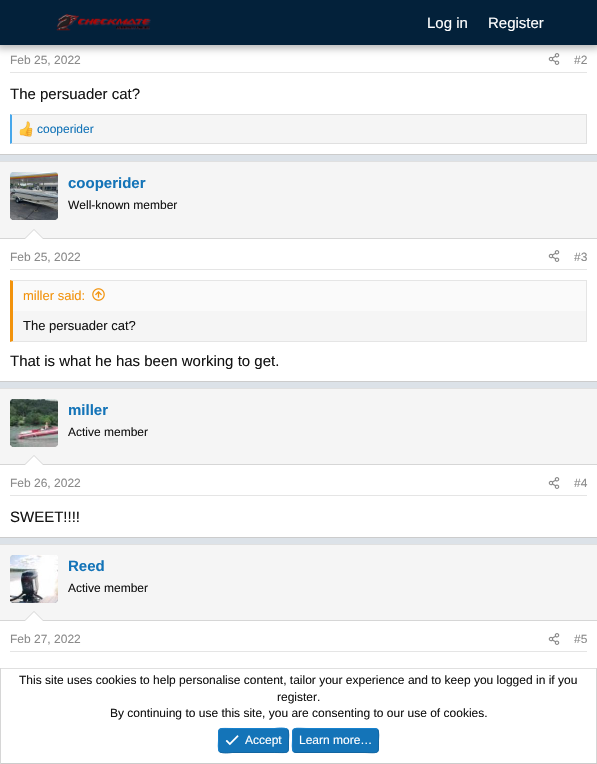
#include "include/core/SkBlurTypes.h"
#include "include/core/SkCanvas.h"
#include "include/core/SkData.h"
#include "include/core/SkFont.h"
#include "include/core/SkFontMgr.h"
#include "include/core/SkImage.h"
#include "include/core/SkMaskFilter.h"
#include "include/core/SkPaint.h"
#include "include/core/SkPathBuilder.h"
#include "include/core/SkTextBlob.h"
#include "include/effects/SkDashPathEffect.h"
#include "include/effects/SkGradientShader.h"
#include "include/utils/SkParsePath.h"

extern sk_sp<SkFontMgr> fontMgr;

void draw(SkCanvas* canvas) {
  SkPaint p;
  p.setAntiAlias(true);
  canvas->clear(SkColorSetRGB(220, 226, 232));
  p.setColor(SK_ColorWHITE);
  canvas->drawRect(SkRect::MakeLTRB(0, 45, 597, 154), p);
  canvas->drawImageRect(SkImages::DeferredFromEncodedData(SkData::MakeFromFileName("images/2.png")), SkRect::MakeLTRB(548, 53, 560, 65), SkSamplingOptions());
  p.setColor(SkColorSetARGB(77, 0, 0, 0));
  p.setMaskFilter(SkMaskFilter::MakeBlur(kNormal_SkBlurStyle, 4));
  canvas->drawRect(SkRect::MakeLTRB(-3, -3, 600, 48), p);
  p.setMaskFilter(nullptr);
  p.setColor(SkColorSetRGB(3, 33, 58));
  canvas->drawRect(SkRect::MakeLTRB(0, 0, 597, 45), p);
  canvas->drawImageRect(SkImages::DeferredFromEncodedData(SkData::MakeFromFileName("images/1.png")), SkRect::MakeLTRB(56, 14, 151, 31), SkSamplingOptions());
  p.setColor(SkColorSetRGB(204, 204, 204));
  canvas->drawRect(SkRect::MakeLTRB(0, 154, 597, 155), p);
  p.setColor(SkColorSetRGB(229, 229, 229));
  canvas->drawRect(SkRect::MakeLTRB(10, 72, 587, 73), p);
  p.setColor(SkColorSetRGB(245, 245, 245));
  canvas->drawRect(SkRect::MakeLTRB(12, 115, 586, 143), p);
  p.setColor(SkColorSetRGB(224, 224, 224));
  canvas->drawPath(SkPathBuilder().moveTo(10, 114).lineTo(587, 114).lineTo(586, 115).lineTo(12, 115).close().detach(), p);
  canvas->drawRect(SkRect::MakeLTRB(586, 114, 587, 144), p);
  canvas->drawPath(SkPathBuilder().moveTo(587, 144).lineTo(10, 144).lineTo(12, 143).lineTo(586, 143).close().detach(), p);
  p.setColor(SkColorSetRGB(71, 167, 235));
  canvas->drawPath(SkPathBuilder().moveTo(10, 144).lineTo(10, 114).lineTo(12, 115).lineTo(12, 143).close().detach(), p);
  canvas->drawImageRect(SkImages::DeferredFromEncodedData(SkData::MakeFromFileName("images/3.png")), SkRect::MakeLTRB(19, 121, 33, 137), SkSamplingOptions());
  p.setColor(SK_ColorWHITE);
  canvas->drawRect(SkRect::MakeLTRB(0, 239, 597, 381), p);
  p.setColor(SkColorSetRGB(224, 224, 224));
  canvas->drawRect(SkRect::MakeLTRB(0, 161, 597, 162), p);
  p.setColor(SkColorSetRGB(204, 204, 204));
  canvas->drawRect(SkRect::MakeLTRB(0, 381, 597, 382), p);
  p.setColor(SkColorSetRGB(245, 245, 245));
  canvas->drawRect(SkRect::MakeLTRB(0, 162, 597, 238), p);
  p.setColor(SkColorSetRGB(214, 214, 214));
  canvas->drawRect(SkRect::MakeLTRB(0, 238, 597, 239), p);
  p.setColor(SK_ColorWHITE);
  canvas->drawRoundRect(SkRect::MakeLTRB(10, 172, 58, 220), 2.5f, 2.5f, p);
  canvas->drawImageRect(SkImages::DeferredFromEncodedData(SkData::MakeFromFileName("images/4.png")), SkRect::MakeLTRB(10, 172, 58, 220), SkSamplingOptions());
  p.setColor(SkColorSetRGB(214, 214, 214));
  canvas->drawPath(SkPathBuilder().moveTo(44, 239).lineTo(24, 239).lineTo(34, 229).close().detach(), p);
  p.setColor(SK_ColorWHITE);
  canvas->drawPath(SkPathBuilder().moveTo(43, 239).lineTo(25, 239).lineTo(34, 230).close().detach(), p);
  p.setColor(SkColorSetRGB(229, 229, 229));
  canvas->drawRect(SkRect::MakeLTRB(10, 269, 587, 270), p);
  canvas->drawImageRect(SkImages::DeferredFromEncodedData(SkData::MakeFromFileName("images/2.png")), SkRect::MakeLTRB(548, 250, 560, 262), SkSamplingOptions());
  p.setColor(SkColorSetRGB(245, 245, 245));
  canvas->drawRect(SkRect::MakeLTRB(13, 311, 586, 341), p);
  p.setColor(SkColorSetRGB(229, 229, 229));
  canvas->drawPath(SkPathBuilder().moveTo(10, 280).lineTo(587, 280).lineTo(586, 281).lineTo(13, 281).close().detach(), p);
  canvas->drawRect(SkRect::MakeLTRB(586, 280, 587, 342), p);
  canvas->drawPath(SkPathBuilder().moveTo(587, 342).lineTo(10, 342).lineTo(13, 341).lineTo(586, 341).close().detach(), p);
  p.setColor(SkColorSetRGB(242, 147, 13));
  canvas->drawPath(SkPathBuilder().moveTo(10, 342).lineTo(10, 280).lineTo(13, 281).lineTo(13, 341).close().detach(), p);
  p.setColor(SkColorSetRGB(250, 250, 250));
  canvas->drawRect(SkRect::MakeLTRB(13, 281, 586, 311), p);
  canvas->drawImageRect(SkImages::DeferredFromEncodedData(SkData::MakeFromFileName("images/5.png")), SkRect::MakeLTRB(92, 288, 105, 301), SkSamplingOptions());
  p.setColor(SK_ColorWHITE);
  canvas->drawRect(SkRect::MakeLTRB(0, 465, 597, 537), p);
  p.setColor(SkColorSetRGB(224, 224, 224));
  canvas->drawRect(SkRect::MakeLTRB(0, 388, 597, 389), p);
  p.setColor(SkColorSetRGB(204, 204, 204));
  canvas->drawRect(SkRect::MakeLTRB(0, 537, 597, 538), p);
  p.setColor(SkColorSetRGB(245, 245, 245));
  canvas->drawRect(SkRect::MakeLTRB(0, 389, 597, 464), p);
  p.setColor(SkColorSetRGB(214, 214, 214));
  canvas->drawRect(SkRect::MakeLTRB(0, 464, 597, 465), p);
  p.setColor(SK_ColorWHITE);
  canvas->drawRoundRect(SkRect::MakeLTRB(10, 399, 58, 447), 2.5f, 2.5f, p);
  canvas->drawImageRect(SkImages::DeferredFromEncodedData(SkData::MakeFromFileName("images/6.png")), SkRect::MakeLTRB(10, 399, 58, 447), SkSamplingOptions());
  p.setColor(SkColorSetRGB(214, 214, 214));
  canvas->drawPath(SkPathBuilder().moveTo(44, 465).lineTo(24, 465).lineTo(34, 455).close().detach(), p);
  p.setColor(SK_ColorWHITE);
  canvas->drawPath(SkPathBuilder().moveTo(43, 465).lineTo(25, 465).lineTo(34, 456).close().detach(), p);
  p.setColor(SkColorSetRGB(229, 229, 229));
  canvas->drawRect(SkRect::MakeLTRB(10, 495, 587, 496), p);
  canvas->drawImageRect(SkImages::DeferredFromEncodedData(SkData::MakeFromFileName("images/2.png")), SkRect::MakeLTRB(548, 477, 560, 489), SkSamplingOptions());
  p.setColor(SK_ColorWHITE);
  canvas->drawRect(SkRect::MakeLTRB(0, 621, 597, 668), p);
  p.setColor(SkColorSetRGB(224, 224, 224));
  canvas->drawRect(SkRect::MakeLTRB(0, 544, 597, 545), p);
  p.setColor(SkColorSetRGB(245, 245, 245));
  canvas->drawRect(SkRect::MakeLTRB(0, 545, 597, 620), p);
  p.setColor(SkColorSetRGB(214, 214, 214));
  canvas->drawRect(SkRect::MakeLTRB(0, 620, 597, 621), p);
  p.setColor(SK_ColorWHITE);
  canvas->drawRoundRect(SkRect::MakeLTRB(10, 555, 58, 603), 2.5f, 2.5f, p);
  canvas->drawImageRect(SkImages::DeferredFromEncodedData(SkData::MakeFromFileName("images/7.png")), SkRect::MakeLTRB(10, 555, 58, 603), SkSamplingOptions());
  p.setColor(SkColorSetRGB(214, 214, 214));
  canvas->drawPath(SkPathBuilder().moveTo(44, 621).lineTo(24, 621).lineTo(34, 611).close().detach(), p);
  p.setColor(SK_ColorWHITE);
  canvas->drawPath(SkPathBuilder().moveTo(43, 621).lineTo(25, 621).lineTo(34, 612).close().detach(), p);
  p.setColor(SkColorSetRGB(229, 229, 229));
  canvas->drawRect(SkRect::MakeLTRB(10, 651, 587, 652), p);
  canvas->drawImageRect(SkImages::DeferredFromEncodedData(SkData::MakeFromFileName("images/2.png")), SkRect::MakeLTRB(548, 633, 560, 645), SkSamplingOptions());
  p.setColor(SK_ColorWHITE);
  canvas->drawRect(SkRect::MakeLTRB(1, 669, 596, 763), p);
  p.setColor(SkColorSetRGB(224, 224, 224));
  canvas->drawRect(SkRect::MakeLTRB(0, 668, 597, 669), p);
  p.setColor(SkColorSetRGB(214, 214, 214));
  canvas->drawRect(SkRect::MakeLTRB(596, 668, 597, 764), p);
  p.setColor(SkColorSetRGB(204, 204, 204));
  canvas->drawRect(SkRect::MakeLTRB(0, 763, 597, 764), p);
  p.setColor(SkColorSetRGB(214, 214, 214));
  canvas->drawRect(SkRect::MakeLTRB(0, 668, 1, 764), p);
  p.setColor(SkColorSetRGB(20, 116, 184));
  canvas->drawRoundRect(SkRect::MakeLTRB(218, 728, 289, 753), 4, 4, p);
  p.setStyle(SkPaint::kStroke_Style);
  p.setStrokeWidth(1);
  p.setColor(SkColorSetRGB(18, 101, 161));
  canvas->drawPath(SkPathBuilder().moveTo(287.5f, 729.5f).cubicTo(289.5f, 732, 288.5f, 738, 288.5f, 740.5f).cubicTo(288.5f, 754.5f, 289.5f, 752.5f, 274.5f, 752.5f).lineTo(232.5f, 752.5f).cubicTo(231.5f, 752.5f, 222, 754, 219.5f, 751.5f).detach(), p);
  p.setColor(SkColorSetRGB(23, 130, 207));
  canvas->drawPath(SkPathBuilder().moveTo(219.5f, 751.5f).cubicTo(217.5f, 749, 218.5f, 743, 218.5f, 740.5f).cubicTo(218.5f, 726.5f, 217.5f, 728.5f, 232.5f, 728.5f).lineTo(274.5f, 728.5f).cubicTo(275.5f, 728.5f, 285, 727, 287.5f, 729.5f).detach(), p);
  canvas->drawImageRect(SkImages::DeferredFromEncodedData(SkData::MakeFromFileName("images/8.png")), SkRect::MakeLTRB(225, 735, 239, 746), SkSamplingOptions());
  p.setStyle(SkPaint::kFill_Style);
  p.setColor(SkColorSetRGB(20, 116, 184));
  canvas->drawRoundRect(SkRect::MakeLTRB(292, 728, 379, 753), 4, 4, p);
  p.setStyle(SkPaint::kStroke_Style);
  p.setColor(SkColorSetRGB(18, 101, 161));
  canvas->drawPath(SkPathBuilder().moveTo(377.5f, 729.5f).cubicTo(379.5f, 732, 378.5f, 738, 378.5f, 740.5f).cubicTo(378.5f, 755.5f, 379, 752.5f, 362, 752.5f).lineTo(296, 752.5f).lineTo(293.5f, 751.5f).detach(), p);
  p.setColor(SkColorSetRGB(23, 130, 207));
  canvas->drawPath(SkPathBuilder().moveTo(293.5f, 751.5f).cubicTo(291.5f, 749, 292.5f, 743, 292.5f, 740.5f).cubicTo(292.5f, 725.5f, 292, 728.5f, 309, 728.5f).lineTo(375, 728.5f).lineTo(377.5f, 729.5f).detach(), p);
  SkFont font1(fontMgr->matchFamilyStyle("Liberation Sans", SkFontStyle::Normal()), 15);
  font1.setSubpixel(true);
  p.setStyle(SkPaint::kFill_Style);
  p.setColor(SK_ColorWHITE);
  canvas->drawString("Log in", 427, 28, font1, p);
  canvas->drawString("Register", 488, 28, font1, p);
  SkFont font2(fontMgr->matchFamilyStyle("Liberation Sans", SkFontStyle::Normal()), 12);
  font2.setSubpixel(true);
  p.setColor(SkColorSetRGB(138, 138, 138));
  canvas->drawString("Feb 25, 2022", 10, 64, font2, p);
  canvas->drawString("#2", 574, 64, font2, p);
  p.setColor(SkColorSetRGB(20, 20, 20));
  canvas->drawString("The persuader cat?", 10, 99, font1, p);
  p.setColor(SkColorSetRGB(20, 116, 184));
  canvas->drawString("cooperider", 37, 133, font2, p);
  SkFont font3(fontMgr->matchFamilyStyle("Liberation Sans", SkFontStyle::Bold()), 15);
  font3.setSubpixel(true);
  canvas->drawString("cooperider", 68, 188, font3, p);
  p.setColor(SkColorSetRGB(20, 20, 20));
  canvas->drawString("Well-known member", 68, 209, font2, p);
  p.setColor(SkColorSetRGB(138, 138, 138));
  canvas->drawString("Feb 25, 2022", 10, 261, font2, p);
  canvas->drawString("#3", 574, 261, font2, p);
  SkFont font4(fontMgr->matchFamilyStyle("Liberation Sans", SkFontStyle::Normal()), 13);
  font4.setSubpixel(true);
  p.setColor(SkColorSetRGB(242, 147, 13));
  canvas->drawString("miller said:", 23, 300, font4, p);
  p.setColor(SkColorSetRGB(20, 20, 20));
  canvas->drawString("The persuader cat?", 23, 330, font4, p);
  canvas->drawString("That is what he has been working to get.", 10, 366, font1, p);
  p.setColor(SkColorSetRGB(20, 116, 184));
  canvas->drawString("miller", 68, 415, font3, p);
  p.setColor(SkColorSetRGB(20, 20, 20));
  canvas->drawString("Active member", 68, 436, font2, p);
  p.setColor(SkColorSetRGB(138, 138, 138));
  canvas->drawString("Feb 26, 2022", 10, 487, font2, p);
  canvas->drawString("#4", 574, 487, font2, p);
  p.setColor(SkColorSetRGB(20, 20, 20));
  canvas->drawString("SWEET!!!!", 10, 522, font1, p);
  p.setColor(SkColorSetRGB(20, 116, 184));
  canvas->drawString("Reed", 68, 571, font3, p);
  p.setColor(SkColorSetRGB(20, 20, 20));
  canvas->drawString("Active member", 68, 592, font2, p);
  p.setColor(SkColorSetRGB(138, 138, 138));
  canvas->drawString("Feb 27, 2022", 10, 643, font2, p);
  canvas->drawString("#5", 574, 643, font2, p);
  p.setColor(SkColorSetRGB(20, 20, 20));
  canvas->drawString("This site uses cookies to help personalise content, tailor your experience and to keep you logged in if you", 19, 684, font2, p);
  canvas->drawString("register.", 277, 701, font2, p);
  canvas->drawString("By continuing to use this site, you are consenting to our use of cookies.", 110, 717, font2, p);
  p.setColor(SK_ColorWHITE);
  canvas->drawString("Accept", 245, 744, font2, p);
  canvas->drawString("Learn more…", 299, 744, font2, p);
}
